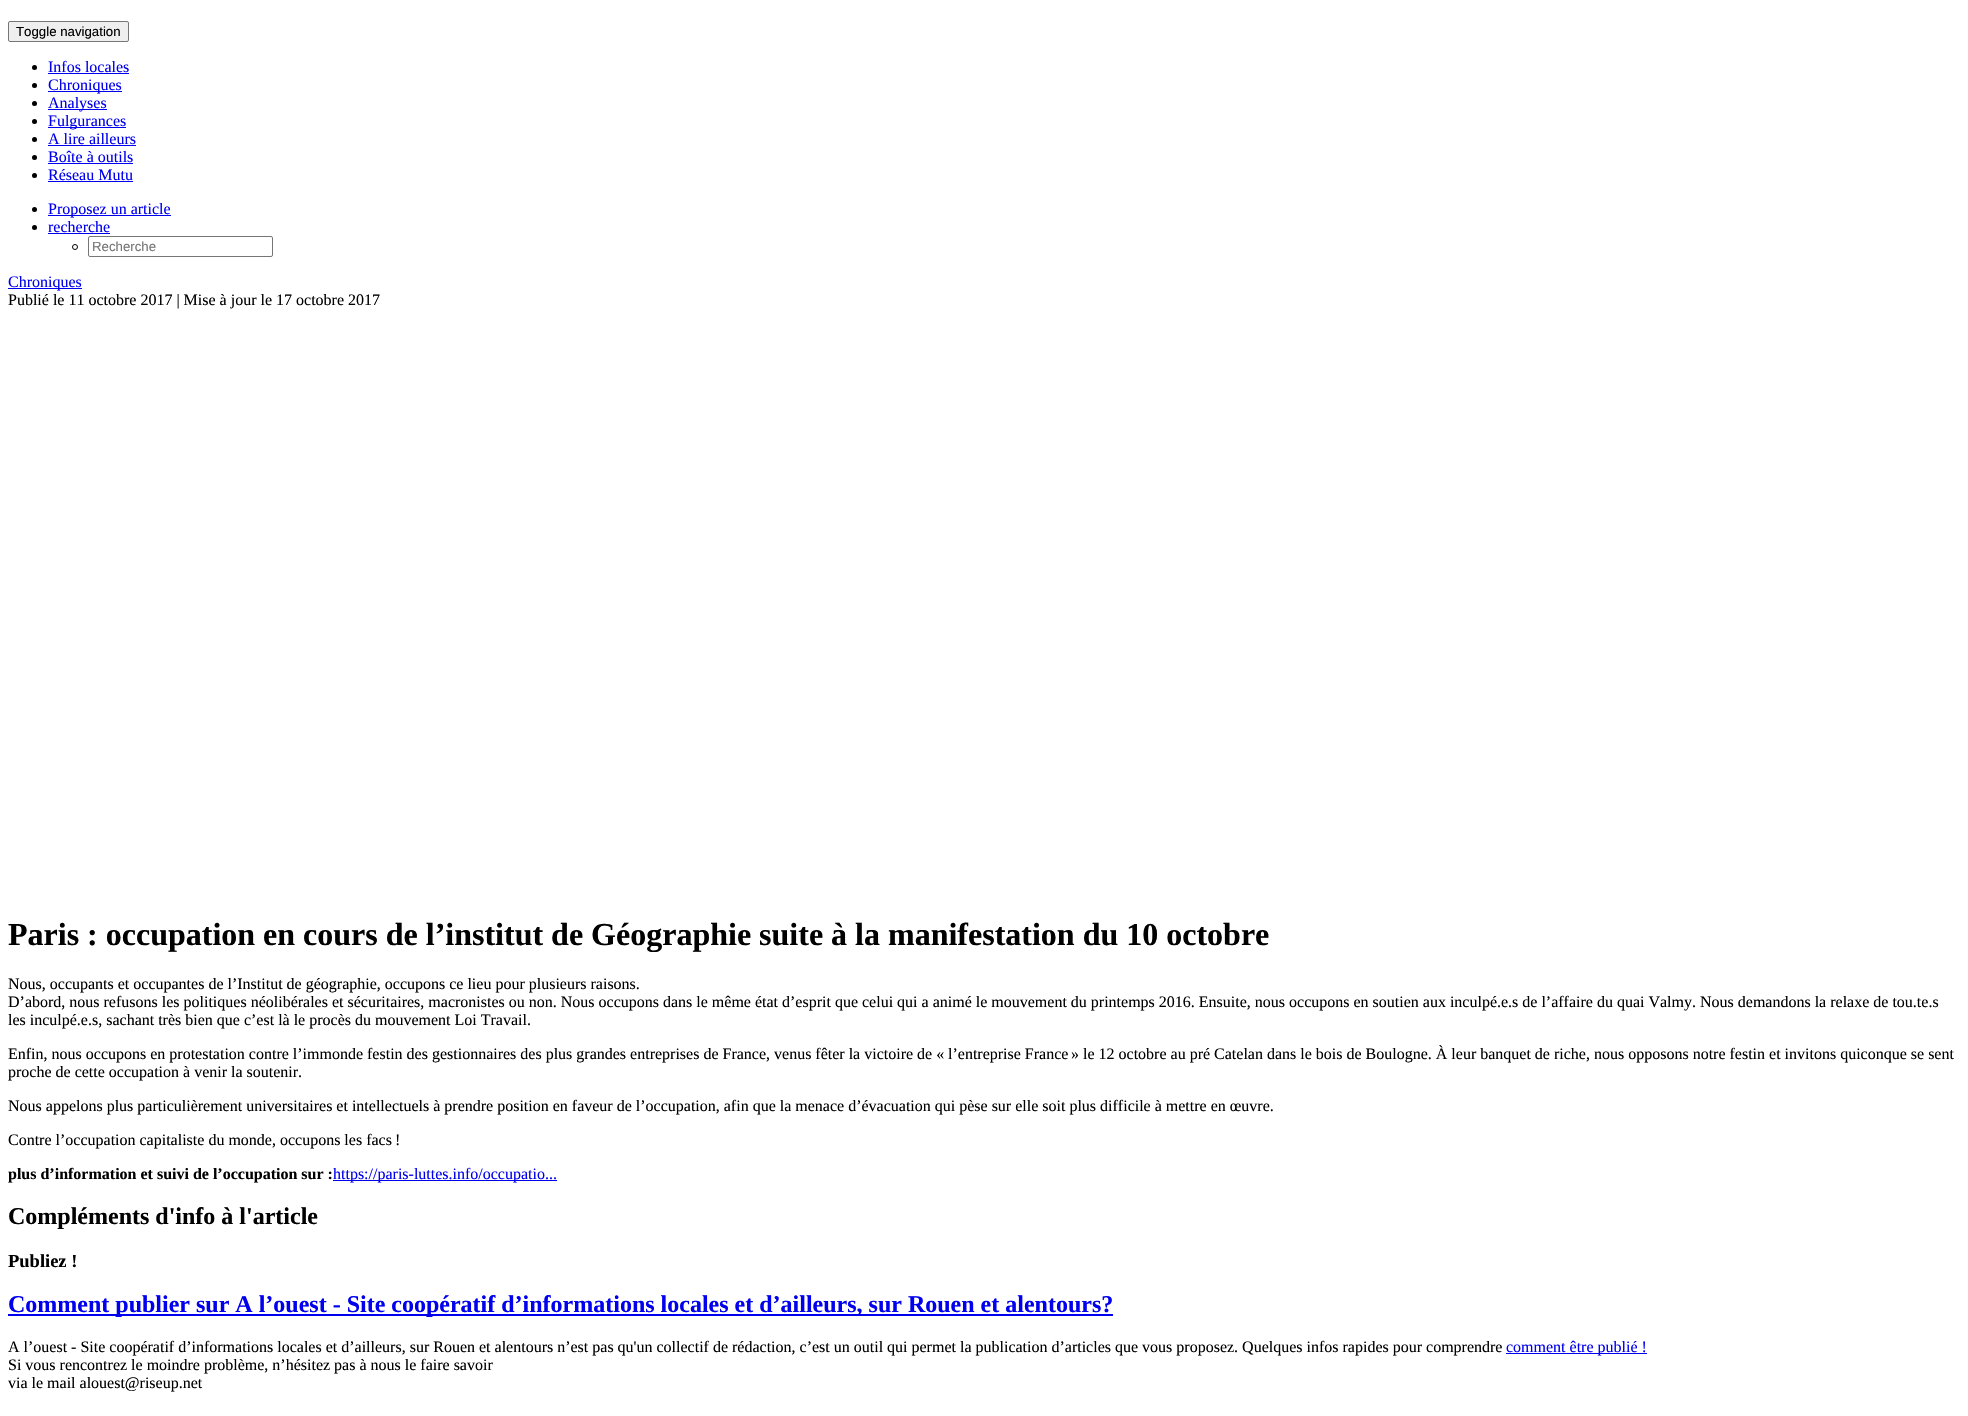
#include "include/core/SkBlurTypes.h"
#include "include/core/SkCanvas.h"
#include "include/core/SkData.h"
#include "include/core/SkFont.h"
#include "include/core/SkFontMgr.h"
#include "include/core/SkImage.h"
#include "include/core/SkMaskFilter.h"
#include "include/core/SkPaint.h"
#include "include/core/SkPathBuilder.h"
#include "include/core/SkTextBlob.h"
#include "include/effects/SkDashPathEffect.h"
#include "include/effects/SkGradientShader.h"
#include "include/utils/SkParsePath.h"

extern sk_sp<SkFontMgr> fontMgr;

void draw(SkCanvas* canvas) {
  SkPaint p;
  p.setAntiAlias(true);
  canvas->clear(SK_ColorWHITE);
  p.setColor(SkColorSetRGB(239, 239, 239));
  canvas->drawRoundRect(SkRect::MakeLTRB(8.5f, 21.5f, 128.5f, 41.5f), 1.5f, 1.5f, p);
  p.setStyle(SkPaint::kStroke_Style);
  p.setStrokeWidth(1);
  p.setColor(SkColorSetRGB(118, 118, 118));
  canvas->drawRoundRect(SkRect::MakeLTRB(8.5f, 21.5f, 128.5f, 41.5f), 1.5f, 1.5f, p);
  p.setStyle(SkPaint::kFill_Style);
  p.setColor(SK_ColorBLACK);
  canvas->drawCircle(34.5f, 67.5f, 2.5f, p);
  p.setColor(SkColorSetRGB(0, 0, 238));
  canvas->drawRect(SkRect::MakeLTRB(48, 73, 129, 74), p);
  p.setColor(SK_ColorBLACK);
  canvas->drawCircle(34.5f, 85.5f, 2.5f, p);
  p.setColor(SkColorSetRGB(0, 0, 238));
  canvas->drawRect(SkRect::MakeLTRB(48, 91, 122, 92), p);
  p.setColor(SK_ColorBLACK);
  canvas->drawCircle(34.5f, 103.5f, 2.5f, p);
  p.setColor(SkColorSetRGB(0, 0, 238));
  canvas->drawRect(SkRect::MakeLTRB(48, 109, 107, 110), p);
  p.setColor(SK_ColorBLACK);
  canvas->drawCircle(34.5f, 121.5f, 2.5f, p);
  p.setColor(SkColorSetRGB(0, 0, 238));
  canvas->drawRect(SkRect::MakeLTRB(48, 127, 126, 128), p);
  p.setColor(SK_ColorBLACK);
  canvas->drawCircle(34.5f, 139.5f, 2.5f, p);
  p.setColor(SkColorSetRGB(0, 0, 238));
  canvas->drawRect(SkRect::MakeLTRB(48, 145, 136, 146), p);
  p.setColor(SK_ColorBLACK);
  canvas->drawCircle(34.5f, 157.5f, 2.5f, p);
  p.setColor(SkColorSetRGB(0, 0, 238));
  canvas->drawRect(SkRect::MakeLTRB(48, 163, 133, 164), p);
  p.setColor(SK_ColorBLACK);
  canvas->drawCircle(34.5f, 175.5f, 2.5f, p);
  p.setColor(SkColorSetRGB(0, 0, 238));
  canvas->drawRect(SkRect::MakeLTRB(48, 181, 133, 182), p);
  p.setColor(SK_ColorBLACK);
  canvas->drawCircle(34.5f, 209.5f, 2.5f, p);
  p.setColor(SkColorSetRGB(0, 0, 238));
  canvas->drawRect(SkRect::MakeLTRB(48, 215, 171, 216), p);
  p.setColor(SK_ColorBLACK);
  canvas->drawCircle(34.5f, 227.5f, 2.5f, p);
  p.setColor(SkColorSetRGB(0, 0, 238));
  canvas->drawRect(SkRect::MakeLTRB(48, 233, 110, 234), p);
  p.setStyle(SkPaint::kStroke_Style);
  p.setColor(SK_ColorBLACK);
  canvas->drawCircle(75, 247, 2.5f, p);
  p.setColor(SkColorSetRGB(118, 118, 118));
  canvas->drawRoundRect(SkRect::MakeLTRB(88.5f, 236.5f, 272.5f, 256.5f), 1.5f, 1.5f, p);
  p.setStyle(SkPaint::kFill_Style);
  p.setColor(SkColorSetRGB(0, 0, 238));
  canvas->drawRect(SkRect::MakeLTRB(8, 288, 82, 289), p);
  canvas->drawRect(SkRect::MakeLTRB(333, 1180, 557, 1181), p);
  canvas->drawRect(SkRect::MakeLTRB(8, 1314, 1113, 1316), p);
  canvas->drawRect(SkRect::MakeLTRB(1506, 1353, 1647, 1354), p);
  SkFont font1(fontMgr->matchFamilyStyle("Liberation Sans", SkFontStyle::Normal()), 13.25f);
  font1.setSubpixel(true);
  p.setColor(SK_ColorBLACK);
  canvas->drawString("Toggle navigation", 16, 36, font1, p);
  SkFont font2(fontMgr->matchFamilyStyle("Liberation Serif", SkFontStyle::Normal()), 16);
  font2.setSubpixel(true);
  p.setColor(SkColorSetRGB(0, 0, 238));
  canvas->drawString("Infos locales", 48, 72, font2, p);
  canvas->drawString("Chroniques", 48, 90, font2, p);
  canvas->drawString("Analyses", 48, 108, font2, p);
  canvas->drawString("Fulgurances", 48, 126, font2, p);
  canvas->drawString("A lire ailleurs", 48, 144, font2, p);
  canvas->drawString("Boîte à outils", 48, 162, font2, p);
  canvas->drawString("Réseau Mutu", 48, 180, font2, p);
  canvas->drawString("Proposez un article", 48, 214, font2, p);
  canvas->drawString("recherche", 48, 232, font2, p);
  p.setColor(SkColorSetRGB(117, 117, 117));
  canvas->drawString("Recherche", 92, 251, font1, p);
  p.setColor(SkColorSetRGB(0, 0, 238));
  canvas->drawString("Chroniques", 8, 287, font2, p);
  p.setColor(SK_ColorBLACK);
  canvas->drawString("Publié le 11 octobre 2017 | Mise à jour le 17 octobre 2017", 8, 305, font2, p);
  SkFont font3(fontMgr->matchFamilyStyle("Liberation Serif", SkFontStyle::Bold()), 32);
  font3.setSubpixel(true);
  canvas->drawString("Paris : occupation en cours de l’institut de Géographie suite à la manifestation du 10 octobre", 8, 945, font3, p);
  canvas->drawString("Nous, occupants et occupantes de l’Institut de géographie, occupons ce lieu pour plusieurs raisons.", 8, 989, font2, p);
  canvas->drawString("D’abord, nous refusons les politiques néolibérales et sécuritaires, macronistes ou non. Nous occupons dans le même état d’esprit que celui qui a animé le mouvement du printemps 2016. Ensuite, nous occupons en soutien aux inculpé.e.s de l’affaire du quai Valmy. Nous demandons la relaxe de tou.te.s", 8, 1007, font2, p);
  canvas->drawString("les inculpé.e.s, sachant très bien que c’est là le procès du mouvement Loi Travail.", 8, 1025, font2, p);
  canvas->drawString("Enfin, nous occupons en protestation contre l’immonde festin des gestionnaires des plus grandes entreprises de France, venus fêter la victoire de «", 8, 1059, font2, p);
  canvas->drawString("l’entreprise France", 948, 1059, font2, p);
  canvas->drawString("» le 12 octobre au pré Catelan dans le bois de Boulogne. À leur banquet de riche, nous opposons notre festin et invitons quiconque se sent", 1071, 1059, font2, p);
  canvas->drawString("proche de cette occupation à venir la soutenir.", 8, 1077, font2, p);
  canvas->drawString("Nous appelons plus particulièrement universitaires et intellectuels à prendre position en faveur de l’occupation, afin que la menace d’évacuation qui pèse sur elle soit plus difficile à mettre en œuvre.", 8, 1111, font2, p);
  canvas->drawString("Contre l’occupation capitaliste du monde, occupons les facs", 8, 1145, font2, p);
  canvas->drawString("!", 395, 1145, font2, p);
  SkFont font4(fontMgr->matchFamilyStyle("Liberation Serif", SkFontStyle::Bold()), 16);
  font4.setSubpixel(true);
  canvas->drawString("plus d’information et suivi de l’occupation sur :", 8, 1179, font4, p);
  p.setColor(SkColorSetRGB(0, 0, 238));
  canvas->drawString("https://paris-luttes.info/occupatio...", 333, 1179, font2, p);
  SkFont font5(fontMgr->matchFamilyStyle("Liberation Serif", SkFontStyle::Bold()), 24);
  font5.setSubpixel(true);
  p.setColor(SK_ColorBLACK);
  canvas->drawString("Compléments d'info à l'article", 8, 1224, font5, p);
  SkFont font6(fontMgr->matchFamilyStyle("Liberation Serif", SkFontStyle::Bold()), 18.5f);
  font6.setSubpixel(true);
  canvas->drawString("Publiez !", 8, 1267, font6, p);
  p.setColor(SkColorSetRGB(0, 0, 238));
  canvas->drawString("Comment publier sur A l’ouest - Site coopératif d’informations locales et d’ailleurs, sur Rouen et alentours?", 8, 1312, font5, p);
  p.setColor(SK_ColorBLACK);
  canvas->drawString("A l’ouest - Site coopératif d’informations locales et d’ailleurs, sur Rouen et alentours n’est pas qu'un collectif de rédaction, c’est un outil qui permet la publication d’articles que vous proposez. Quelques infos rapides pour comprendre", 8, 1352, font2, p);
  p.setColor(SkColorSetRGB(0, 0, 238));
  canvas->drawString("comment être publié !", 1506, 1352, font2, p);
  p.setColor(SK_ColorBLACK);
  canvas->drawString("Si vous rencontrez le moindre problème, n’hésitez pas à nous le faire savoir", 8, 1370, font2, p);
  canvas->drawString("via le mail alouest@riseup.net", 8, 1388, font2, p);
}
